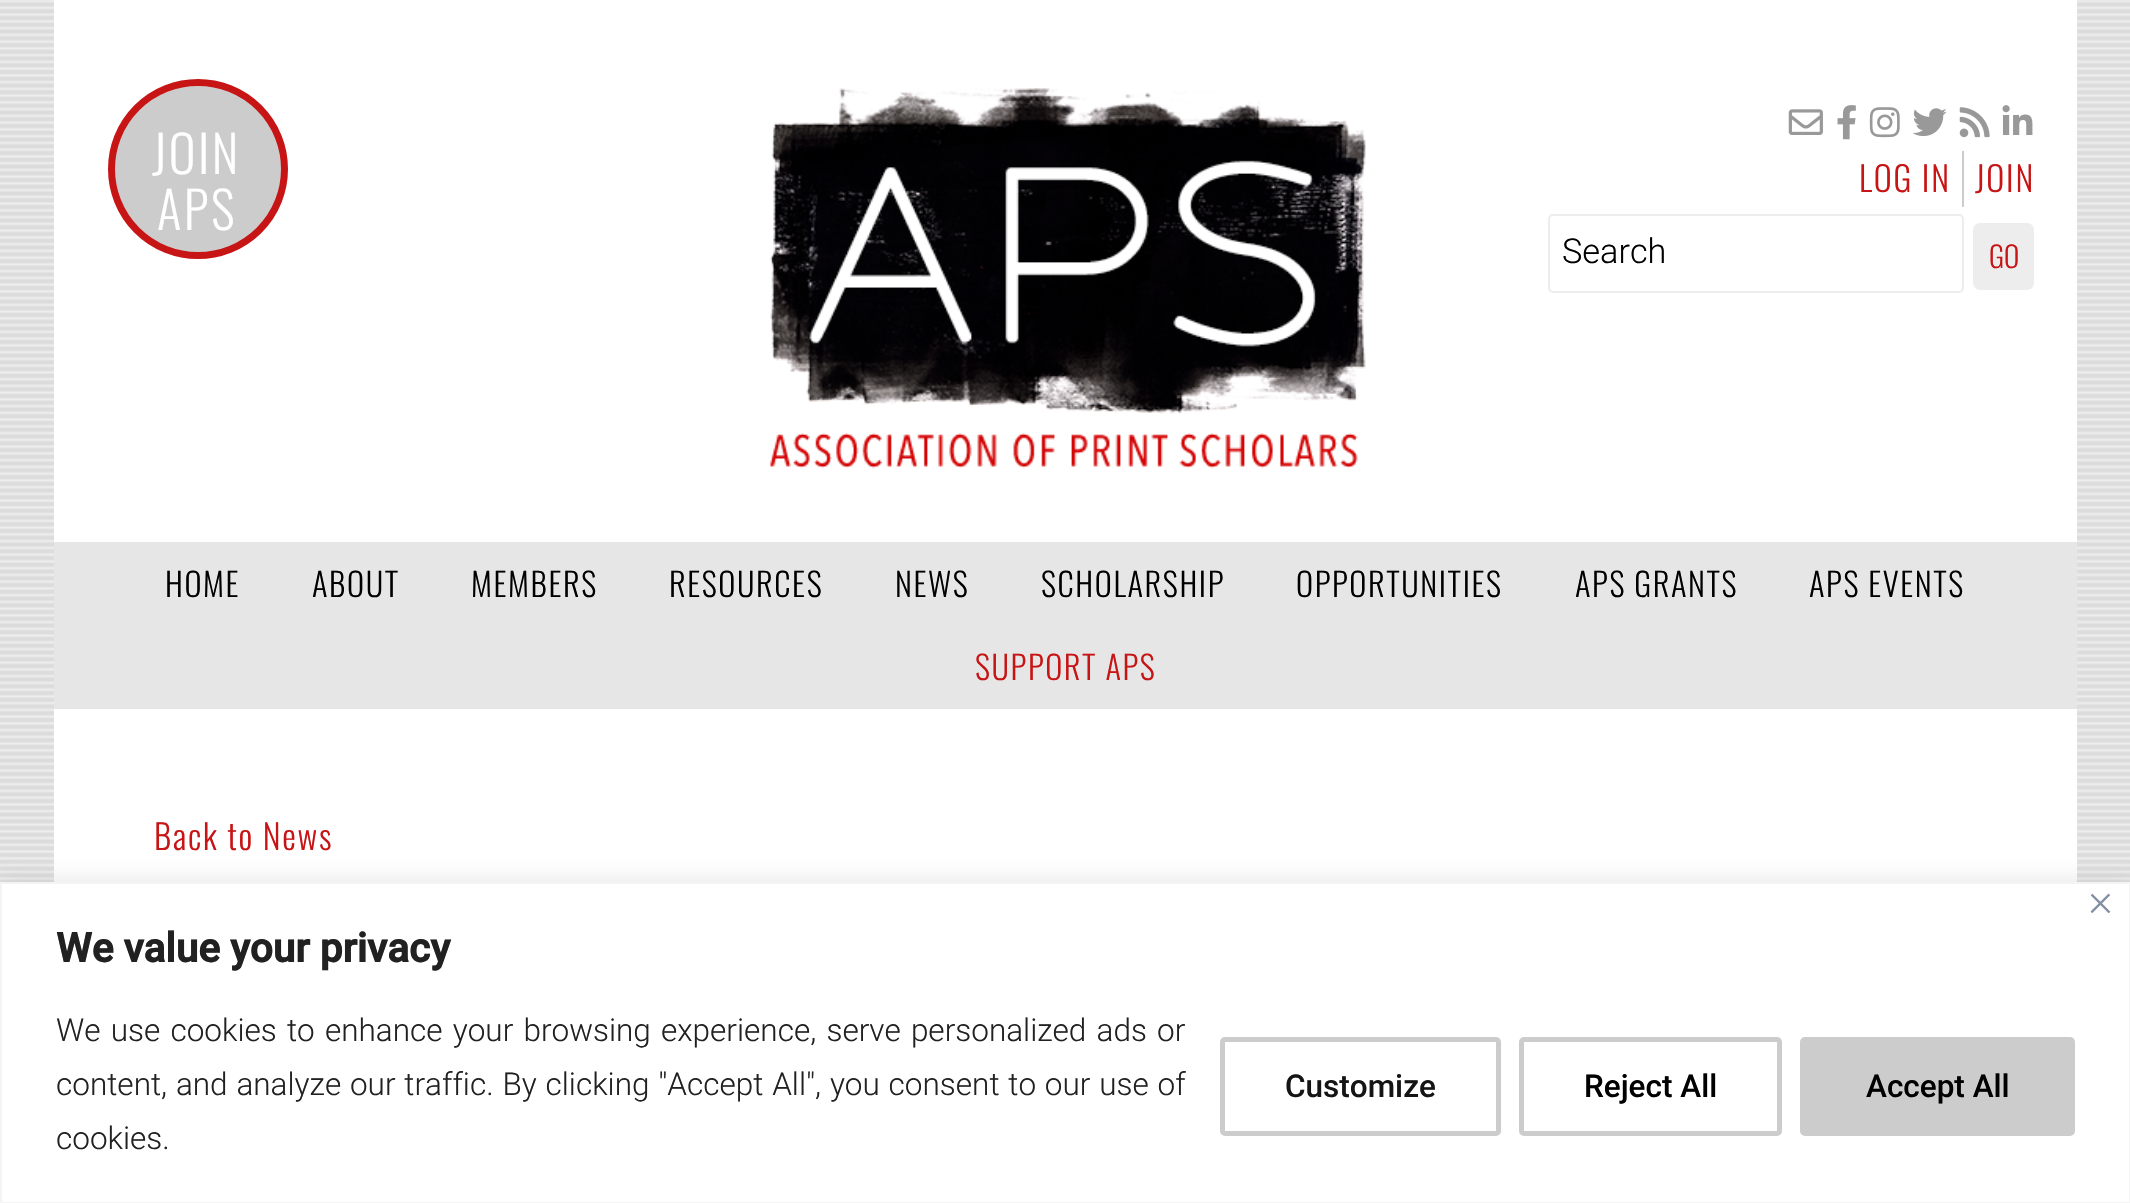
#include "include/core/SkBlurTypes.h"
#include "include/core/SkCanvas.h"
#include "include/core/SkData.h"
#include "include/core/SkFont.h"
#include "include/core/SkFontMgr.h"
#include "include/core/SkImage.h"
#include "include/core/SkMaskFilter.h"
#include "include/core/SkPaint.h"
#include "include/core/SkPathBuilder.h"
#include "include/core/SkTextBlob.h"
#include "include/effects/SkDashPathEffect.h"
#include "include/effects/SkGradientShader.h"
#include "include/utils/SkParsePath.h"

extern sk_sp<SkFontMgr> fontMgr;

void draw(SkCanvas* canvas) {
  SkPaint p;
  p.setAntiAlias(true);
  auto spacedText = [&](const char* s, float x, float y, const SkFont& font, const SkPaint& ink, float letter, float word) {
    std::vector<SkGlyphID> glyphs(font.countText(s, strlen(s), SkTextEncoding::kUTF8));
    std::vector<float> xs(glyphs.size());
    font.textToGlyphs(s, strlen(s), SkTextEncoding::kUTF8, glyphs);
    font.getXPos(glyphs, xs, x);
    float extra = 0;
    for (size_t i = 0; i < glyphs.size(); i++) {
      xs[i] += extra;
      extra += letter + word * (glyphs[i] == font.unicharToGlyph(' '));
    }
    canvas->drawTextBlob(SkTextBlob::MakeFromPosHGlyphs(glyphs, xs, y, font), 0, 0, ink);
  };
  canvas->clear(SK_ColorWHITE);
  canvas->drawImageRect(SkImages::DeferredFromEncodedData(SkData::MakeFromFileName("images/1.png")), SkRect::MakeLTRB(0, 0, 2130, 882), SkSamplingOptions());
  p.setColor(SK_ColorWHITE);
  canvas->drawRect(SkRect::MakeLTRB(54, 0, 2077, 882), p);
  p.setColor(SkColorSetRGB(204, 204, 204));
  canvas->drawCircle(198, 169, 86.5f, p);
  p.setStyle(SkPaint::kStroke_Style);
  p.setStrokeWidth(7);
  p.setColor(SkColorSetRGB(199, 20, 20));
  canvas->drawCircle(198, 169, 86.5f, p);
  canvas->drawImageRect(SkImages::DeferredFromEncodedData(SkData::MakeFromFileName("images/2.png")), SkRect::MakeLTRB(770, 88, 1366, 469), SkSamplingOptions());
  canvas->drawImageRect(SkImages::DeferredFromEncodedData(SkData::MakeFromFileName("images/3.png")), SkRect::MakeLTRB(1788, 109, 1823, 135), SkSamplingOptions());
  canvas->drawImageRect(SkImages::DeferredFromEncodedData(SkData::MakeFromFileName("images/4.png")), SkRect::MakeLTRB(1837, 105, 1856, 140), SkSamplingOptions());
  canvas->drawImageRect(SkImages::DeferredFromEncodedData(SkData::MakeFromFileName("images/5.png")), SkRect::MakeLTRB(1869, 107, 1900, 138), SkSamplingOptions());
  canvas->drawImageRect(SkImages::DeferredFromEncodedData(SkData::MakeFromFileName("images/6.png")), SkRect::MakeLTRB(1913, 108, 1947, 137), SkSamplingOptions());
  canvas->drawImageRect(SkImages::DeferredFromEncodedData(SkData::MakeFromFileName("images/7.png")), SkRect::MakeLTRB(1959, 107, 1990, 138), SkSamplingOptions());
  canvas->drawImageRect(SkImages::DeferredFromEncodedData(SkData::MakeFromFileName("images/8.png")), SkRect::MakeLTRB(2002, 105, 2033, 135), SkSamplingOptions());
  p.setStyle(SkPaint::kFill_Style);
  p.setColor(SkColorSetRGB(204, 204, 204));
  canvas->drawRect(SkRect::MakeLTRB(1962, 151, 1964, 207), p);
  p.setStyle(SkPaint::kStroke_Style);
  p.setStrokeWidth(2);
  p.setColor(SkColorSetRGB(237, 237, 237));
  canvas->drawRoundRect(SkRect::MakeLTRB(1549, 215, 1963, 292), 4, 4, p);
  p.setStyle(SkPaint::kFill_Style);
  canvas->drawRoundRect(SkRect::MakeLTRB(1973, 223, 2034, 290), 7, 7, p);
  p.setColor(SkColorSetRGB(230, 230, 230));
  canvas->drawRect(SkRect::MakeLTRB(54, 542, 2077, 709), p);
  p.setColor(SkColorSetARGB(77, 172, 171, 171));
  p.setMaskFilter(SkMaskFilter::MakeBlur(kNormal_SkBlurStyle, 11));
  canvas->drawRect(SkRect::MakeLTRB(0, 880, 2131, 1202), p);
  p.setMaskFilter(nullptr);
  p.setColor(SK_ColorWHITE);
  canvas->drawRect(SkRect::MakeLTRB(1, 883, 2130, 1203), p);
  p.setStyle(SkPaint::kStroke_Style);
  p.setColor(SkColorSetRGB(244, 244, 244));
  canvas->drawRect(SkRect::MakeLTRB(1, 883, 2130, 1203), p);
  canvas->drawImageRect(SkImages::DeferredFromEncodedData(SkData::MakeFromFileName("images/9.png")), SkRect::MakeLTRB(2090, 893, 2111, 914), SkSamplingOptions());
  p.setStrokeWidth(5);
  p.setColor(SkColorSetRGB(204, 204, 204));
  canvas->drawRoundRect(SkRect::MakeLTRB(1222.5f, 1039.5f, 1498.5f, 1133.5f), 2.5f, 2.5f, p);
  canvas->drawRoundRect(SkRect::MakeLTRB(1521.5f, 1039.5f, 1779.5f, 1133.5f), 2.5f, 2.5f, p);
  p.setStyle(SkPaint::kFill_Style);
  canvas->drawRoundRect(SkRect::MakeLTRB(1802.5f, 1039.5f, 2072.5f, 1133.5f), 2.5f, 2.5f, p);
  p.setStyle(SkPaint::kStroke_Style);
  canvas->drawRoundRect(SkRect::MakeLTRB(1802.5f, 1039.5f, 2072.5f, 1133.5f), 2.5f, 2.5f, p);
  SkFont font1(fontMgr->matchFamilyStyle("Oswald", SkFontStyle(300, SkFontStyle::kNormal_Width, SkFontStyle::kUpright_Slant)), 51);
  font1.setSubpixel(true);
  p.setStyle(SkPaint::kFill_Style);
  p.setColor(SK_ColorWHITE);
  spacedText("JOIN", 152, 174, font1, p, 2.5f, 0);
  spacedText("APS", 157, 230, font1, p, 2.5f, 0);
  SkFont font2(fontMgr->matchFamilyStyle("Oswald", SkFontStyle(300, SkFontStyle::kNormal_Width, SkFontStyle::kUpright_Slant)), 34.25f);
  font2.setSubpixel(true);
  p.setColor(SkColorSetRGB(199, 20, 20));
  spacedText("LOG IN", 1859, 192, font2, p, 1.75f, 0);
  spacedText("JOIN", 1975, 192, font2, p, 1.75f, 0);
  SkFont font3(fontMgr->matchFamilyStyle("Roboto", SkFontStyle(300, SkFontStyle::kNormal_Width, SkFontStyle::kUpright_Slant)), 34.25f);
  font3.setSubpixel(true);
  p.setColor(SK_ColorBLACK);
  canvas->drawString("Search", 1562, 263, font3, p);
  SkFont font4(fontMgr->matchFamilyStyle("Oswald", SkFontStyle(300, SkFontStyle::kNormal_Width, SkFontStyle::kUpright_Slant)), 29);
  font4.setSubpixel(true);
  p.setColor(SkColorSetRGB(199, 20, 20));
  canvas->drawString("GO", 1989, 268, font4, p);
  SkFont font5(fontMgr->matchFamilyStyle("Oswald", SkFontStyle(300, SkFontStyle::kNormal_Width, SkFontStyle::kUpright_Slant)), 32.5f);
  font5.setSubpixel(true);
  p.setColor(SK_ColorBLACK);
  spacedText("HOME", 165, 597, font5, p, 1.6f, 0);
  spacedText("ABOUT", 312, 597, font5, p, 1.6f, 0);
  spacedText("MEMBERS", 471, 597, font5, p, 1.6f, 0);
  spacedText("RESOURCES", 669, 597, font5, p, 1.6f, 0);
  spacedText("NEWS", 895, 597, font5, p, 1.6f, 0);
  spacedText("SCHOLARSHIP", 1041, 597, font5, p, 1.6f, 0);
  spacedText("OPPORTUNITIES", 1296, 597, font5, p, 1.6f, 0);
  spacedText("APS GRANTS", 1575, 597, font5, p, 1.6f, 0);
  spacedText("APS EVENTS", 1809, 597, font5, p, 1.6f, 0);
  p.setColor(SkColorSetRGB(199, 20, 20));
  spacedText("SUPPORT APS", 975, 680, font5, p, 1.6f, 0);
  spacedText("Back to News", 154, 850, font2, p, 1.75f, 0);
  SkFont font6(fontMgr->matchFamilyStyle("Roboto", SkFontStyle::Bold()), 40.5f);
  font6.setSubpixel(true);
  p.setColor(SkColorSetRGB(33, 33, 33));
  canvas->drawString("We value your privacy", 56, 962, font6, p);
  SkFont font7(fontMgr->matchFamilyStyle("Roboto", SkFontStyle(300, SkFontStyle::kNormal_Width, SkFontStyle::kUpright_Slant)), 31.5f);
  font7.setSubpixel(true);
  spacedText("We use cookies to enhance your browsing experience, serve personalized ads or", 56, 1041, font7, p, 0, 2.5f);
  spacedText("content, and analyze our traffic. By clicking \"Accept All\", you consent to our use of", 56, 1095, font7, p, 0, 1.1f);
  canvas->drawString("cookies.", 56, 1149, font7, p);
  SkFont font8(fontMgr->matchFamilyStyle("Roboto", SkFontStyle(500, SkFontStyle::kNormal_Width, SkFontStyle::kUpright_Slant)), 31.5f);
  font8.setSubpixel(true);
  p.setColor(SkColorSetRGB(21, 21, 21));
  canvas->drawString("Customize", 1285, 1097, font8, p);
  p.setColor(SK_ColorBLACK);
  canvas->drawString("Reject All", 1584, 1097, font8, p);
  canvas->drawString("Accept All", 1866, 1097, font8, p);
}
